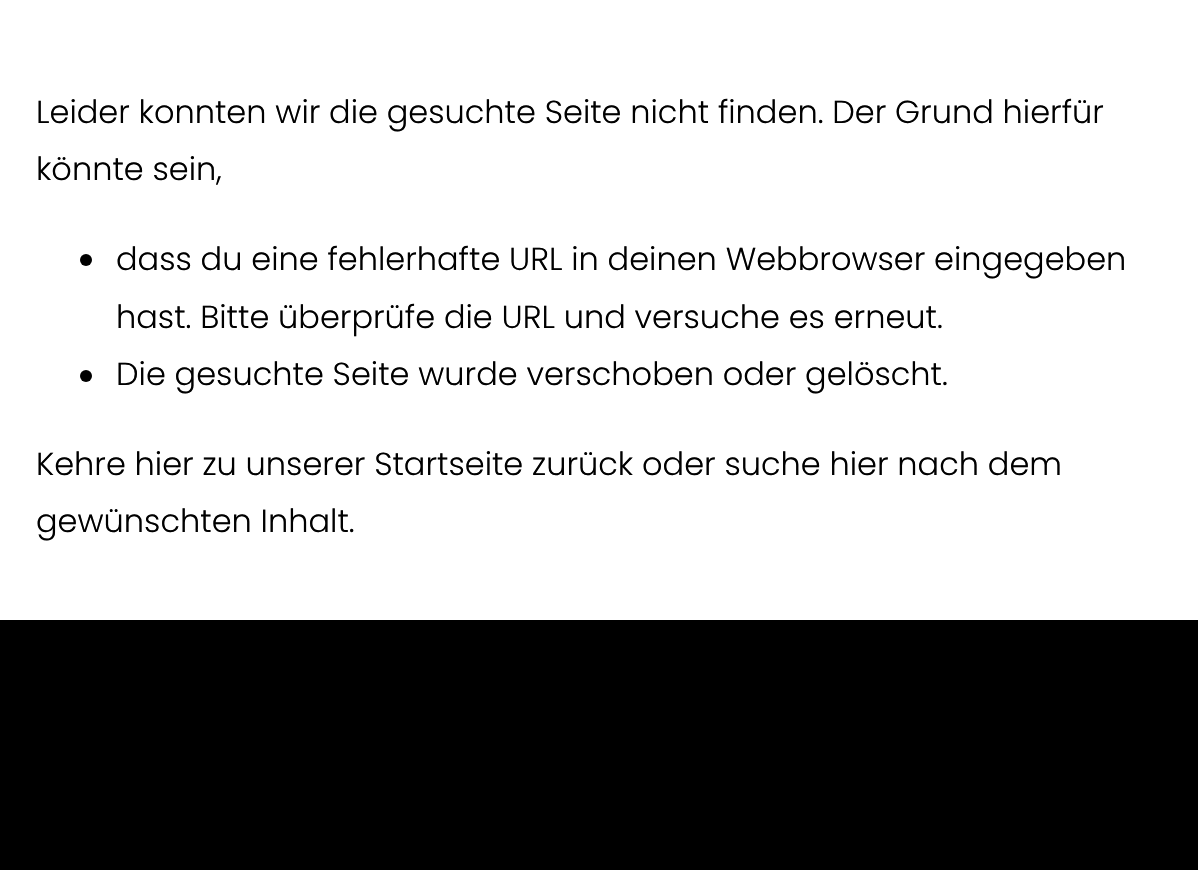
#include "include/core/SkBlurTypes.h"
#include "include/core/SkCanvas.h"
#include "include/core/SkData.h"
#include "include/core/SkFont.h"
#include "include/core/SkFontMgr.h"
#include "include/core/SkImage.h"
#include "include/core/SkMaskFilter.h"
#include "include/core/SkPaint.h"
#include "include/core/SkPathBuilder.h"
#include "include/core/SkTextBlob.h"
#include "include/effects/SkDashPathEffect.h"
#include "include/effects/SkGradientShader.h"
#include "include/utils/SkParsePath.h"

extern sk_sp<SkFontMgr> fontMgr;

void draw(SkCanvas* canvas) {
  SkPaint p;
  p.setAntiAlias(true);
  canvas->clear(SK_ColorWHITE);
  p.setColor(SK_ColorBLACK);
  canvas->drawCircle(86, 260, 6, p);
  canvas->drawCircle(86, 376, 6, p);
  canvas->drawRect(SkRect::MakeLTRB(0, 620, 1198, 870), p);
  SkFont font1(fontMgr->matchFamilyStyle("Poppins", SkFontStyle(300, SkFontStyle::kNormal_Width, SkFontStyle::kUpright_Slant)), 32);
  font1.setSubpixel(true);
  canvas->drawString("Leider konnten wir die gesuchte Seite nicht finden. Der Grund hierfür", 36, 123, font1, p);
  canvas->drawString("könnte sein,", 36, 180, font1, p);
  canvas->drawString("dass du eine fehlerhafte URL in deinen Webbrowser eingegeben", 116, 270, font1, p);
  canvas->drawString("hast. Bitte überprüfe die URL und versuche es erneut.", 116, 328, font1, p);
  canvas->drawString("Die gesuchte Seite wurde verschoben oder gelöscht.", 116, 385, font1, p);
  canvas->drawString("Kehre hier zu unserer Startseite zurück oder suche hier nach dem", 36, 475, font1, p);
  canvas->drawString("gewünschten Inhalt.", 36, 532, font1, p);
}
